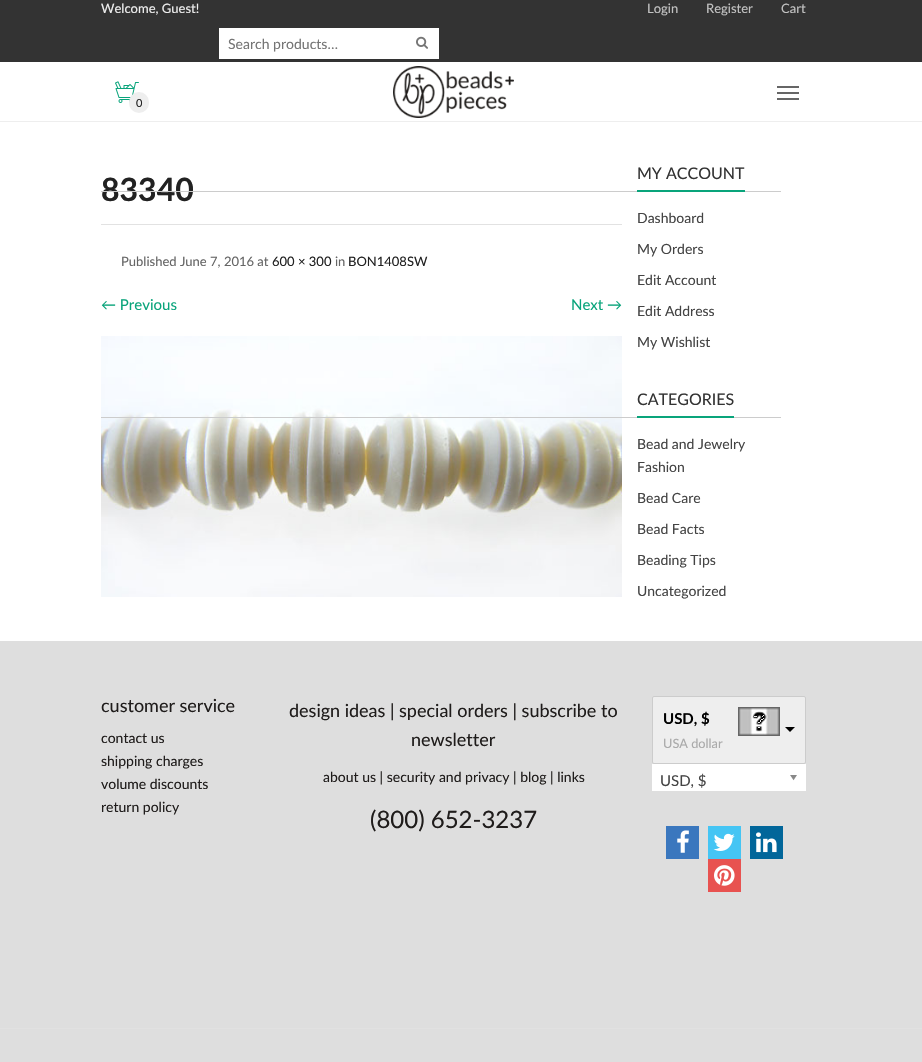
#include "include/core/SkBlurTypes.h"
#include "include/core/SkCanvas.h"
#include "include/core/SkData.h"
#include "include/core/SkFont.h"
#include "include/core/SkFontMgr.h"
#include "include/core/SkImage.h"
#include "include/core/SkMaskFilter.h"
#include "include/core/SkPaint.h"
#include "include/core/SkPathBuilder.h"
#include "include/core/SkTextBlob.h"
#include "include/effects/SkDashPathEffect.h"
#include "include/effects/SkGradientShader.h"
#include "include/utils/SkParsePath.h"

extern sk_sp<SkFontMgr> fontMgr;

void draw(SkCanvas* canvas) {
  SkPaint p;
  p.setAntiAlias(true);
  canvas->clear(SK_ColorWHITE);
  p.setColor(SkColorSetRGB(51, 51, 51));
  canvas->drawRect(SkRect::MakeLTRB(0, 0, 922, 62), p);
  p.setColor(SK_ColorWHITE);
  canvas->drawRect(SkRect::MakeLTRB(219, 28, 439, 59), p);
  canvas->drawImageRect(SkImages::DeferredFromEncodedData(SkData::MakeFromFileName("images/1.png")), SkRect::MakeLTRB(416, 36, 428, 49), SkSamplingOptions());
  p.setColor(SkColorSetRGB(238, 238, 238));
  canvas->drawRect(SkRect::MakeLTRB(0, 121, 922, 122), p);
  canvas->drawImageRect(SkImages::DeferredFromEncodedData(SkData::MakeFromFileName("images/2.png")), SkRect::MakeLTRB(115, 81, 139, 103), SkSamplingOptions());
  canvas->drawRoundRect(SkRect::MakeLTRB(129, 92, 149, 113), 10, 10, p);
  canvas->drawImageRect(SkImages::DeferredFromEncodedData(SkData::MakeFromFileName("images/3.png")), SkRect::MakeLTRB(393, 66, 514, 118), SkSamplingOptions());
  p.setColor(SkColorSetRGB(102, 102, 102));
  canvas->drawRect(SkRect::MakeLTRB(777, 86, 799, 88), p);
  canvas->drawRect(SkRect::MakeLTRB(777, 92, 799, 94), p);
  canvas->drawRect(SkRect::MakeLTRB(777, 98, 799, 100), p);
  p.setColor(SkColorSetRGB(226, 226, 226));
  canvas->drawRect(SkRect::MakeLTRB(101, 224, 622, 225), p);
  canvas->drawImageRect(SkImages::DeferredFromEncodedData(SkData::MakeFromFileName("images/4.png")), SkRect::MakeLTRB(101, 336, 622, 597), SkSamplingOptions());
  p.setColor(SkColorSetRGB(204, 204, 204));
  canvas->drawRect(SkRect::MakeLTRB(101, 417, 781, 418), p);
  p.setColor(SkColorSetRGB(9, 164, 123));
  canvas->drawRect(SkRect::MakeLTRB(637, 416, 734, 418), p);
  p.setColor(SkColorSetRGB(222, 222, 222));
  canvas->drawRect(SkRect::MakeLTRB(0, 641, 922, 1028), p);
  p.setColor(SkColorSetRGB(238, 238, 238));
  canvas->drawRoundRect(SkRect::MakeLTRB(652.5f, 696.5f, 805.5f, 763.5f), 1.5f, 1.5f, p);
  p.setStyle(SkPaint::kStroke_Style);
  p.setStrokeWidth(1);
  p.setColor(SkColorSetRGB(204, 204, 204));
  canvas->drawRoundRect(SkRect::MakeLTRB(652.5f, 696.5f, 805.5f, 763.5f), 1.5f, 1.5f, p);
  canvas->drawImageRect(SkImages::DeferredFromEncodedData(SkData::MakeFromFileName("images/5.png")), SkRect::MakeLTRB(738, 707, 780, 736), SkSamplingOptions());
  p.setStyle(SkPaint::kFill_Style);
  p.setColor(SK_ColorBLACK);
  canvas->drawPath(SkPathBuilder().moveTo(785, 727).lineTo(795, 727).lineTo(790, 732).close().detach(), p);
  p.setColor(SK_ColorWHITE);
  canvas->drawRect(SkRect::MakeLTRB(652, 764, 806, 791), p);
  canvas->drawImageRect(SkImages::DeferredFromEncodedData(SkData::MakeFromFileName("images/6.png")), SkRect::MakeLTRB(790, 775, 797, 781), SkSamplingOptions());
  p.setColor(SkColorSetRGB(58, 119, 190));
  canvas->drawRect(SkRect::MakeLTRB(666, 826, 699, 859), p);
  canvas->drawImageRect(SkImages::DeferredFromEncodedData(SkData::MakeFromFileName("images/7.png")), SkRect::MakeLTRB(677, 830, 689, 853), SkSamplingOptions());
  p.setColor(SkColorSetRGB(69, 197, 244));
  canvas->drawRect(SkRect::MakeLTRB(708, 826, 741, 859), p);
  canvas->drawImageRect(SkImages::DeferredFromEncodedData(SkData::MakeFromFileName("images/8.png")), SkRect::MakeLTRB(713, 833, 735, 851), SkSamplingOptions());
  p.setColor(SkColorSetRGB(1, 102, 154));
  canvas->drawRect(SkRect::MakeLTRB(750, 826, 783, 859), p);
  canvas->drawImageRect(SkImages::DeferredFromEncodedData(SkData::MakeFromFileName("images/9.png")), SkRect::MakeLTRB(756, 832, 777, 853), SkSamplingOptions());
  p.setColor(SkColorSetRGB(232, 82, 80));
  canvas->drawRect(SkRect::MakeLTRB(708, 859, 741, 892), p);
  canvas->drawImageRect(SkImages::DeferredFromEncodedData(SkData::MakeFromFileName("images/10.png")), SkRect::MakeLTRB(714, 865, 735, 886), SkSamplingOptions());
  p.setColor(SkColorSetRGB(222, 222, 222));
  canvas->drawRect(SkRect::MakeLTRB(0, 1029, 922, 1062), p);
  p.setColor(SkColorSetRGB(225, 225, 225));
  canvas->drawRect(SkRect::MakeLTRB(0, 1028, 922, 1029), p);
  SkFont font1(fontMgr->matchFamilyStyle("Lato", SkFontStyle::Normal()), 13);
  font1.setSubpixel(true);
  p.setColor(SkColorSetRGB(238, 238, 238));
  canvas->drawString("Welcome, Guest!", 101, 13, font1, p);
  p.setColor(SkColorSetRGB(194, 194, 194));
  canvas->drawString("Login", 647, 13, font1, p);
  canvas->drawString("Register", 706, 13, font1, p);
  canvas->drawString("Cart", 781, 13, font1, p);
  SkFont font2(fontMgr->matchFamilyStyle("Lato", SkFontStyle::Normal()), 14);
  font2.setSubpixel(true);
  p.setColor(SkColorSetRGB(117, 117, 117));
  canvas->drawString("Search products…", 228, 49, font2, p);
  SkFont font3(fontMgr->matchFamilyStyle("Lato", SkFontStyle::Normal()), 11);
  font3.setSubpixel(true);
  p.setColor(SkColorSetRGB(34, 34, 34));
  canvas->drawString("0", 136, 107, font3, p);
  SkFont font4(fontMgr->matchFamilyStyle("Lato", SkFontStyle::Bold()), 32);
  font4.setSubpixel(true);
  canvas->drawString("83340", 101, 201, font4, p);
  p.setColor(SkColorSetRGB(102, 102, 102));
  canvas->drawString("Published June 7, 2016 at", 121, 266, font1, p);
  p.setColor(SkColorSetRGB(34, 34, 34));
  canvas->drawString("600 × 300", 272, 266, font1, p);
  p.setColor(SkColorSetRGB(102, 102, 102));
  canvas->drawString("in", 335, 266, font1, p);
  p.setColor(SkColorSetRGB(34, 34, 34));
  canvas->drawString("BON1408SW", 348, 266, font1, p);
  SkFont font5(fontMgr->matchFamilyStyle("Lato", SkFontStyle::Normal()), 15);
  font5.setSubpixel(true);
  p.setColor(SkColorSetRGB(9, 164, 123));
  canvas->drawString("← Previous", 101, 310, font5, p);
  canvas->drawString("Next →", 571, 310, font5, p);
  p.setColor(SkColorSetRGB(204, 204, 204));
  canvas->drawRect(SkRect::MakeLTRB(101, 191, 781, 192), p);
  p.setColor(SkColorSetRGB(9, 164, 123));
  canvas->drawRect(SkRect::MakeLTRB(637, 190, 745, 192), p);
  SkFont font6(fontMgr->matchFamilyStyle("Lato", SkFontStyle::Normal()), 16);
  font6.setSubpixel(true);
  p.setColor(SkColorSetRGB(51, 51, 51));
  canvas->drawString("MY ACCOUNT", 637, 179, font6, p);
  p.setColor(SkColorSetRGB(68, 68, 68));
  canvas->drawString("Dashboard", 637, 223, font2, p);
  canvas->drawString("My Orders", 637, 254, font2, p);
  canvas->drawString("Edit Account", 637, 285, font2, p);
  canvas->drawString("Edit Address", 637, 316, font2, p);
  canvas->drawString("My Wishlist", 637, 347, font2, p);
  p.setColor(SkColorSetRGB(51, 51, 51));
  canvas->drawString("CATEGORIES", 637, 405, font6, p);
  p.setColor(SkColorSetRGB(68, 68, 68));
  canvas->drawString("Bead and Jewelry", 637, 449, font2, p);
  canvas->drawString("Fashion", 637, 472, font2, p);
  canvas->drawString("Bead Care", 637, 503, font2, p);
  canvas->drawString("Bead Facts", 637, 534, font2, p);
  canvas->drawString("Beading Tips", 637, 565, font2, p);
  canvas->drawString("Uncategorized", 637, 596, font2, p);
  SkFont font7(fontMgr->matchFamilyStyle("Lato", SkFontStyle::Normal()), 18);
  font7.setSubpixel(true);
  p.setColor(SkColorSetRGB(31, 28, 27));
  canvas->drawString("customer service", 101, 712, font7, p);
  canvas->drawString("contact us", 101, 743, font2, p);
  canvas->drawString("shipping charges", 101, 766, font2, p);
  canvas->drawString("volume discounts", 101, 789, font2, p);
  canvas->drawString("return policy", 101, 812, font2, p);
  canvas->drawString("design ideas | special orders | subscribe to", 289, 717, font7, p);
  canvas->drawString("newsletter", 411, 746, font7, p);
  canvas->drawString("about us | security and privacy | blog | links", 323, 782, font2, p);
  SkFont font8(fontMgr->matchFamilyStyle("Lato", SkFontStyle::Normal()), 24);
  font8.setSubpixel(true);
  canvas->drawString("(800) 652-3237", 370, 828, font8, p);
  SkFont font9(fontMgr->matchFamilyStyle("Lato", SkFontStyle::Bold()), 15);
  font9.setSubpixel(true);
  p.setColor(SK_ColorBLACK);
  canvas->drawString("USD, $", 663, 724, font9, p);
  SkFont font10(fontMgr->matchFamilyStyle("Lato", SkFontStyle::Normal()), 12.75f);
  font10.setSubpixel(true);
  p.setColor(SkColorSetRGB(170, 170, 170));
  canvas->drawString("USA dollar", 663, 748, font10, p);
  p.setColor(SkColorSetRGB(68, 68, 68));
  canvas->drawString("USD, $", 660, 786, font5, p);
}
